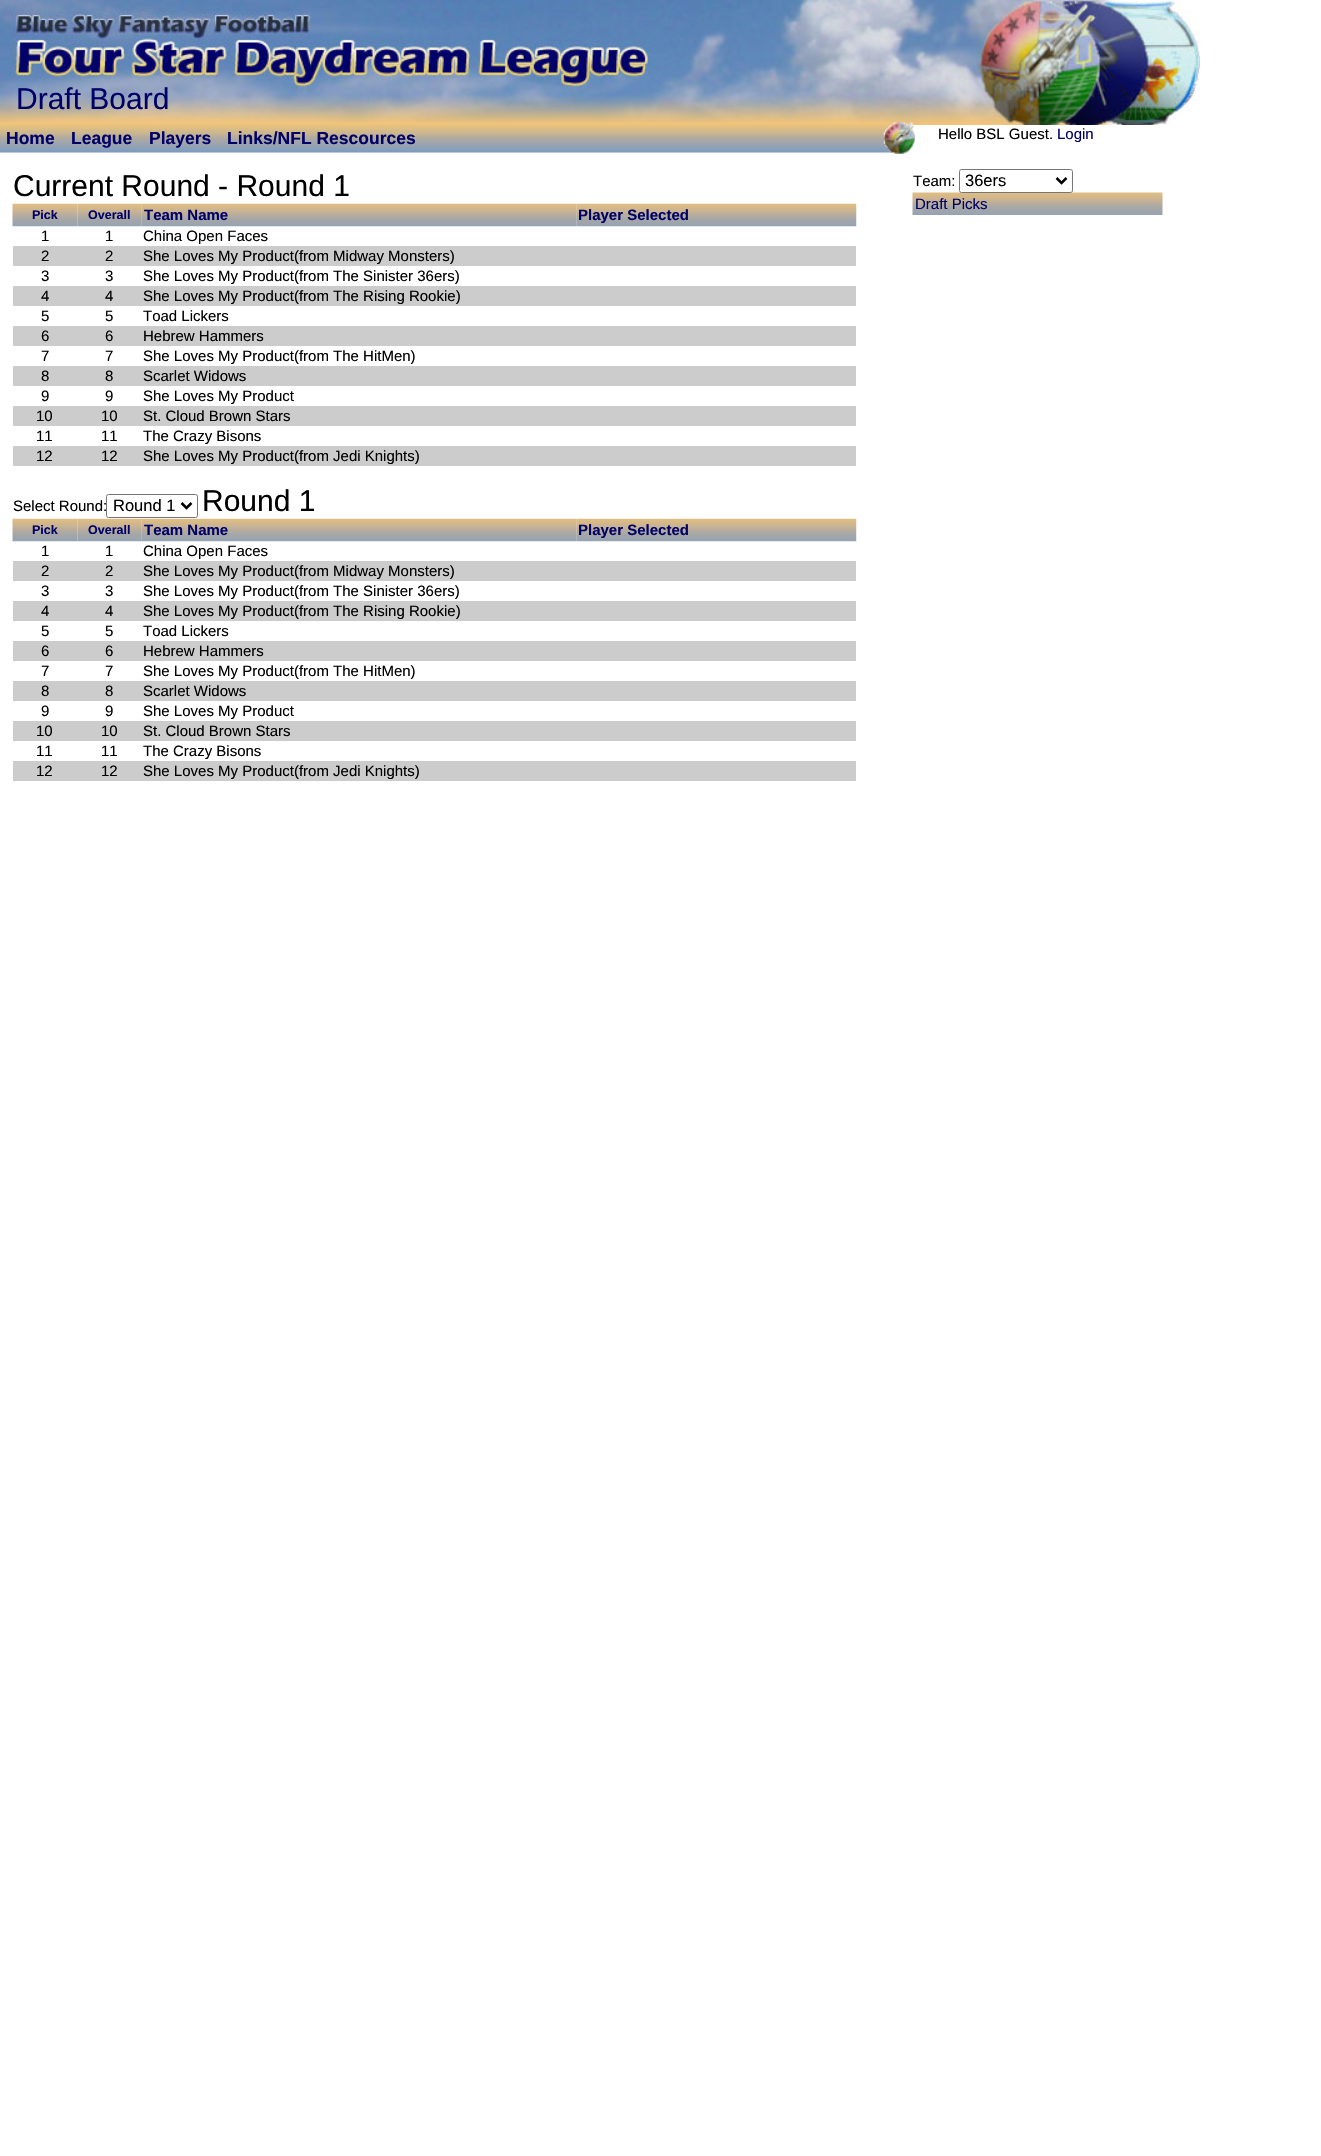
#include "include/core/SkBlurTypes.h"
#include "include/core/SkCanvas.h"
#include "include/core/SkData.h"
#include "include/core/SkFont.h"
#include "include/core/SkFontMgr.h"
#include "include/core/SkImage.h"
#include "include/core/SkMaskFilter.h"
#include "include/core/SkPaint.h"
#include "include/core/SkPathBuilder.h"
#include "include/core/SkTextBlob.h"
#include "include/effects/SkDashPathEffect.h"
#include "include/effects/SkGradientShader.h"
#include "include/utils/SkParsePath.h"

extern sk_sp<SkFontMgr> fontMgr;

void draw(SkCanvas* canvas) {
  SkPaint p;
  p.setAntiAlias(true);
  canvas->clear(SK_ColorWHITE);
  canvas->drawImageRect(SkImages::DeferredFromEncodedData(SkData::MakeFromFileName("images/1.png")), SkRect::MakeLTRB(0, 0, 1200, 125), SkSamplingOptions());
  canvas->drawImageRect(SkImages::DeferredFromEncodedData(SkData::MakeFromFileName("images/2.png")), SkRect::MakeLTRB(0, 122, 900, 153), SkSamplingOptions());
  canvas->drawImageRect(SkImages::DeferredFromEncodedData(SkData::MakeFromFileName("images/3.png")), SkRect::MakeLTRB(883, 122, 915, 154), SkSamplingOptions());
  canvas->drawImageRect(SkImages::DeferredFromEncodedData(SkData::MakeFromFileName("images/4.png")), SkRect::MakeLTRB(12, 203, 78, 227), SkSamplingOptions());
  canvas->drawImageRect(SkImages::DeferredFromEncodedData(SkData::MakeFromFileName("images/5.png")), SkRect::MakeLTRB(77, 203, 142, 227), SkSamplingOptions());
  canvas->drawImageRect(SkImages::DeferredFromEncodedData(SkData::MakeFromFileName("images/6.png")), SkRect::MakeLTRB(141, 203, 577, 227), SkSamplingOptions());
  canvas->drawImageRect(SkImages::DeferredFromEncodedData(SkData::MakeFromFileName("images/7.png")), SkRect::MakeLTRB(576, 203, 857, 227), SkSamplingOptions());
  p.setColor(SkColorSetRGB(204, 204, 204));
  canvas->drawRect(SkRect::MakeLTRB(13, 246, 856, 266), p);
  canvas->drawRect(SkRect::MakeLTRB(13, 286, 856, 306), p);
  canvas->drawRect(SkRect::MakeLTRB(13, 326, 856, 346), p);
  canvas->drawRect(SkRect::MakeLTRB(13, 366, 856, 386), p);
  canvas->drawRect(SkRect::MakeLTRB(13, 406, 856, 426), p);
  canvas->drawRect(SkRect::MakeLTRB(13, 446, 856, 466), p);
  p.setStyle(SkPaint::kStroke_Style);
  p.setStrokeWidth(1);
  p.setColor(SkColorSetRGB(118, 118, 118));
  canvas->drawRoundRect(SkRect::MakeLTRB(106.5f, 494.5f, 197.5f, 517.5f), 2, 2, p);
  p.setStrokeWidth(2.5f);
  p.setColor(SK_ColorBLACK);
  canvas->drawPath(SkPathBuilder().moveTo(181.5f, 503).lineTo(186.5f, 508).lineTo(191.5f, 503).detach(), p);
  canvas->drawImageRect(SkImages::DeferredFromEncodedData(SkData::MakeFromFileName("images/4.png")), SkRect::MakeLTRB(12, 518, 78, 542), SkSamplingOptions());
  canvas->drawImageRect(SkImages::DeferredFromEncodedData(SkData::MakeFromFileName("images/5.png")), SkRect::MakeLTRB(77, 518, 142, 542), SkSamplingOptions());
  canvas->drawImageRect(SkImages::DeferredFromEncodedData(SkData::MakeFromFileName("images/6.png")), SkRect::MakeLTRB(141, 518, 577, 542), SkSamplingOptions());
  canvas->drawImageRect(SkImages::DeferredFromEncodedData(SkData::MakeFromFileName("images/7.png")), SkRect::MakeLTRB(576, 518, 857, 542), SkSamplingOptions());
  p.setStyle(SkPaint::kFill_Style);
  p.setColor(SkColorSetRGB(204, 204, 204));
  canvas->drawRect(SkRect::MakeLTRB(13, 561, 856, 581), p);
  canvas->drawRect(SkRect::MakeLTRB(13, 601, 856, 621), p);
  canvas->drawRect(SkRect::MakeLTRB(13, 641, 856, 661), p);
  canvas->drawRect(SkRect::MakeLTRB(13, 681, 856, 701), p);
  canvas->drawRect(SkRect::MakeLTRB(13, 721, 856, 741), p);
  canvas->drawRect(SkRect::MakeLTRB(13, 761, 856, 781), p);
  canvas->drawImageRect(SkImages::DeferredFromEncodedData(SkData::MakeFromFileName("images/8.png")), SkRect::MakeLTRB(912, 192, 1163, 215), SkSamplingOptions());
  p.setColor(SK_ColorWHITE);
  canvas->drawRoundRect(SkRect::MakeLTRB(959.5f, 169.5f, 1072.5f, 192.5f), 2, 2, p);
  p.setStyle(SkPaint::kStroke_Style);
  p.setStrokeWidth(1);
  p.setColor(SkColorSetRGB(118, 118, 118));
  canvas->drawRoundRect(SkRect::MakeLTRB(959.5f, 169.5f, 1072.5f, 192.5f), 2, 2, p);
  p.setStrokeWidth(2.5f);
  p.setColor(SK_ColorBLACK);
  canvas->drawPath(SkPathBuilder().moveTo(1056.5f, 178).lineTo(1061.5f, 183).lineTo(1066.5f, 178).detach(), p);
  SkFont font1(fontMgr->matchFamilyStyle("Liberation Sans", SkFontStyle::Normal()), 30);
  font1.setSubpixel(true);
  p.setStyle(SkPaint::kFill_Style);
  p.setColor(SkColorSetRGB(0, 0, 102));
  canvas->drawString("Draft Board", 16, 109, font1, p);
  SkFont font2(fontMgr->matchFamilyStyle("Liberation Sans", SkFontStyle::Bold()), 17.5f);
  font2.setSubpixel(true);
  canvas->drawString("Home", 6, 144, font2, p);
  canvas->drawString("League", 71, 144, font2, p);
  canvas->drawString("Players", 149, 144, font2, p);
  canvas->drawString("Links/NFL Rescources", 227, 144, font2, p);
  SkFont font3(fontMgr->matchFamilyStyle("Liberation Sans", SkFontStyle::Normal()), 15);
  font3.setSubpixel(true);
  p.setColor(SK_ColorBLACK);
  canvas->drawString("Hello BSL Guest.", 938, 139, font3, p);
  p.setColor(SkColorSetRGB(0, 0, 102));
  canvas->drawString("Login", 1057, 139, font3, p);
  p.setColor(SK_ColorBLACK);
  canvas->drawString("Current Round - Round 1", 13, 196, font1, p);
  SkFont font4(fontMgr->matchFamilyStyle("Liberation Sans", SkFontStyle::Bold()), 12.5f);
  font4.setSubpixel(true);
  p.setColor(SkColorSetRGB(0, 0, 102));
  canvas->drawString("Pick", 32, 219, font4, p);
  canvas->drawString("Overall", 88, 219, font4, p);
  SkFont font5(fontMgr->matchFamilyStyle("Liberation Sans", SkFontStyle::Bold()), 15);
  font5.setSubpixel(true);
  canvas->drawString("Team Name", 144, 220, font5, p);
  canvas->drawString("Player Selected", 578, 220, font5, p);
  p.setColor(SK_ColorBLACK);
  canvas->drawString("1", 41, 241, font3, p);
  canvas->drawString("1", 105, 241, font3, p);
  canvas->drawString("China Open Faces", 143, 241, font3, p);
  canvas->drawString("2", 41, 261, font3, p);
  canvas->drawString("2", 105, 261, font3, p);
  canvas->drawString("She Loves My Product(from Midway Monsters)", 143, 261, font3, p);
  canvas->drawString("3", 41, 281, font3, p);
  canvas->drawString("3", 105, 281, font3, p);
  canvas->drawString("She Loves My Product(from The Sinister 36ers)", 143, 281, font3, p);
  canvas->drawString("4", 41, 301, font3, p);
  canvas->drawString("4", 105, 301, font3, p);
  canvas->drawString("She Loves My Product(from The Rising Rookie)", 143, 301, font3, p);
  canvas->drawString("5", 41, 321, font3, p);
  canvas->drawString("5", 105, 321, font3, p);
  canvas->drawString("Toad Lickers", 143, 321, font3, p);
  canvas->drawString("6", 41, 341, font3, p);
  canvas->drawString("6", 105, 341, font3, p);
  canvas->drawString("Hebrew Hammers", 143, 341, font3, p);
  canvas->drawString("7", 41, 361, font3, p);
  canvas->drawString("7", 105, 361, font3, p);
  canvas->drawString("She Loves My Product(from The HitMen)", 143, 361, font3, p);
  canvas->drawString("8", 41, 381, font3, p);
  canvas->drawString("8", 105, 381, font3, p);
  canvas->drawString("Scarlet Widows", 143, 381, font3, p);
  canvas->drawString("9", 41, 401, font3, p);
  canvas->drawString("9", 105, 401, font3, p);
  canvas->drawString("She Loves My Product", 143, 401, font3, p);
  canvas->drawString("10", 36, 421, font3, p);
  canvas->drawString("10", 101, 421, font3, p);
  canvas->drawString("St. Cloud Brown Stars", 143, 421, font3, p);
  canvas->drawString("11", 36, 441, font3, p);
  canvas->drawString("11", 101, 441, font3, p);
  canvas->drawString("The Crazy Bisons", 143, 441, font3, p);
  canvas->drawString("12", 36, 461, font3, p);
  canvas->drawString("12", 101, 461, font3, p);
  canvas->drawString("She Loves My Product(from Jedi Knights)", 143, 461, font3, p);
  canvas->drawString("Select Round:", 13, 511, font3, p);
  SkFont font6(fontMgr->matchFamilyStyle("Liberation Sans", SkFontStyle::Normal()), 16.5f);
  font6.setSubpixel(true);
  canvas->drawString("Round 1", 113, 511, font6, p);
  canvas->drawString("Round 1", 202, 511, font1, p);
  p.setColor(SkColorSetRGB(0, 0, 102));
  canvas->drawString("Pick", 32, 534, font4, p);
  canvas->drawString("Overall", 88, 534, font4, p);
  canvas->drawString("Team Name", 144, 535, font5, p);
  canvas->drawString("Player Selected", 578, 535, font5, p);
  p.setColor(SK_ColorBLACK);
  canvas->drawString("1", 41, 556, font3, p);
  canvas->drawString("1", 105, 556, font3, p);
  canvas->drawString("China Open Faces", 143, 556, font3, p);
  canvas->drawString("2", 41, 576, font3, p);
  canvas->drawString("2", 105, 576, font3, p);
  canvas->drawString("She Loves My Product(from Midway Monsters)", 143, 576, font3, p);
  canvas->drawString("3", 41, 596, font3, p);
  canvas->drawString("3", 105, 596, font3, p);
  canvas->drawString("She Loves My Product(from The Sinister 36ers)", 143, 596, font3, p);
  canvas->drawString("4", 41, 616, font3, p);
  canvas->drawString("4", 105, 616, font3, p);
  canvas->drawString("She Loves My Product(from The Rising Rookie)", 143, 616, font3, p);
  canvas->drawString("5", 41, 636, font3, p);
  canvas->drawString("5", 105, 636, font3, p);
  canvas->drawString("Toad Lickers", 143, 636, font3, p);
  canvas->drawString("6", 41, 656, font3, p);
  canvas->drawString("6", 105, 656, font3, p);
  canvas->drawString("Hebrew Hammers", 143, 656, font3, p);
  canvas->drawString("7", 41, 676, font3, p);
  canvas->drawString("7", 105, 676, font3, p);
  canvas->drawString("She Loves My Product(from The HitMen)", 143, 676, font3, p);
  canvas->drawString("8", 41, 696, font3, p);
  canvas->drawString("8", 105, 696, font3, p);
  canvas->drawString("Scarlet Widows", 143, 696, font3, p);
  canvas->drawString("9", 41, 716, font3, p);
  canvas->drawString("9", 105, 716, font3, p);
  canvas->drawString("She Loves My Product", 143, 716, font3, p);
  canvas->drawString("10", 36, 736, font3, p);
  canvas->drawString("10", 101, 736, font3, p);
  canvas->drawString("St. Cloud Brown Stars", 143, 736, font3, p);
  canvas->drawString("11", 36, 756, font3, p);
  canvas->drawString("11", 101, 756, font3, p);
  canvas->drawString("The Crazy Bisons", 143, 756, font3, p);
  canvas->drawString("12", 36, 776, font3, p);
  canvas->drawString("12", 101, 776, font3, p);
  canvas->drawString("She Loves My Product(from Jedi Knights)", 143, 776, font3, p);
  canvas->drawString("Team:", 913, 186, font3, p);
  canvas->drawString("36ers", 965, 186, font6, p);
  p.setColor(SkColorSetRGB(0, 0, 102));
  canvas->drawString("Draft Picks", 915, 209, font3, p);
}
